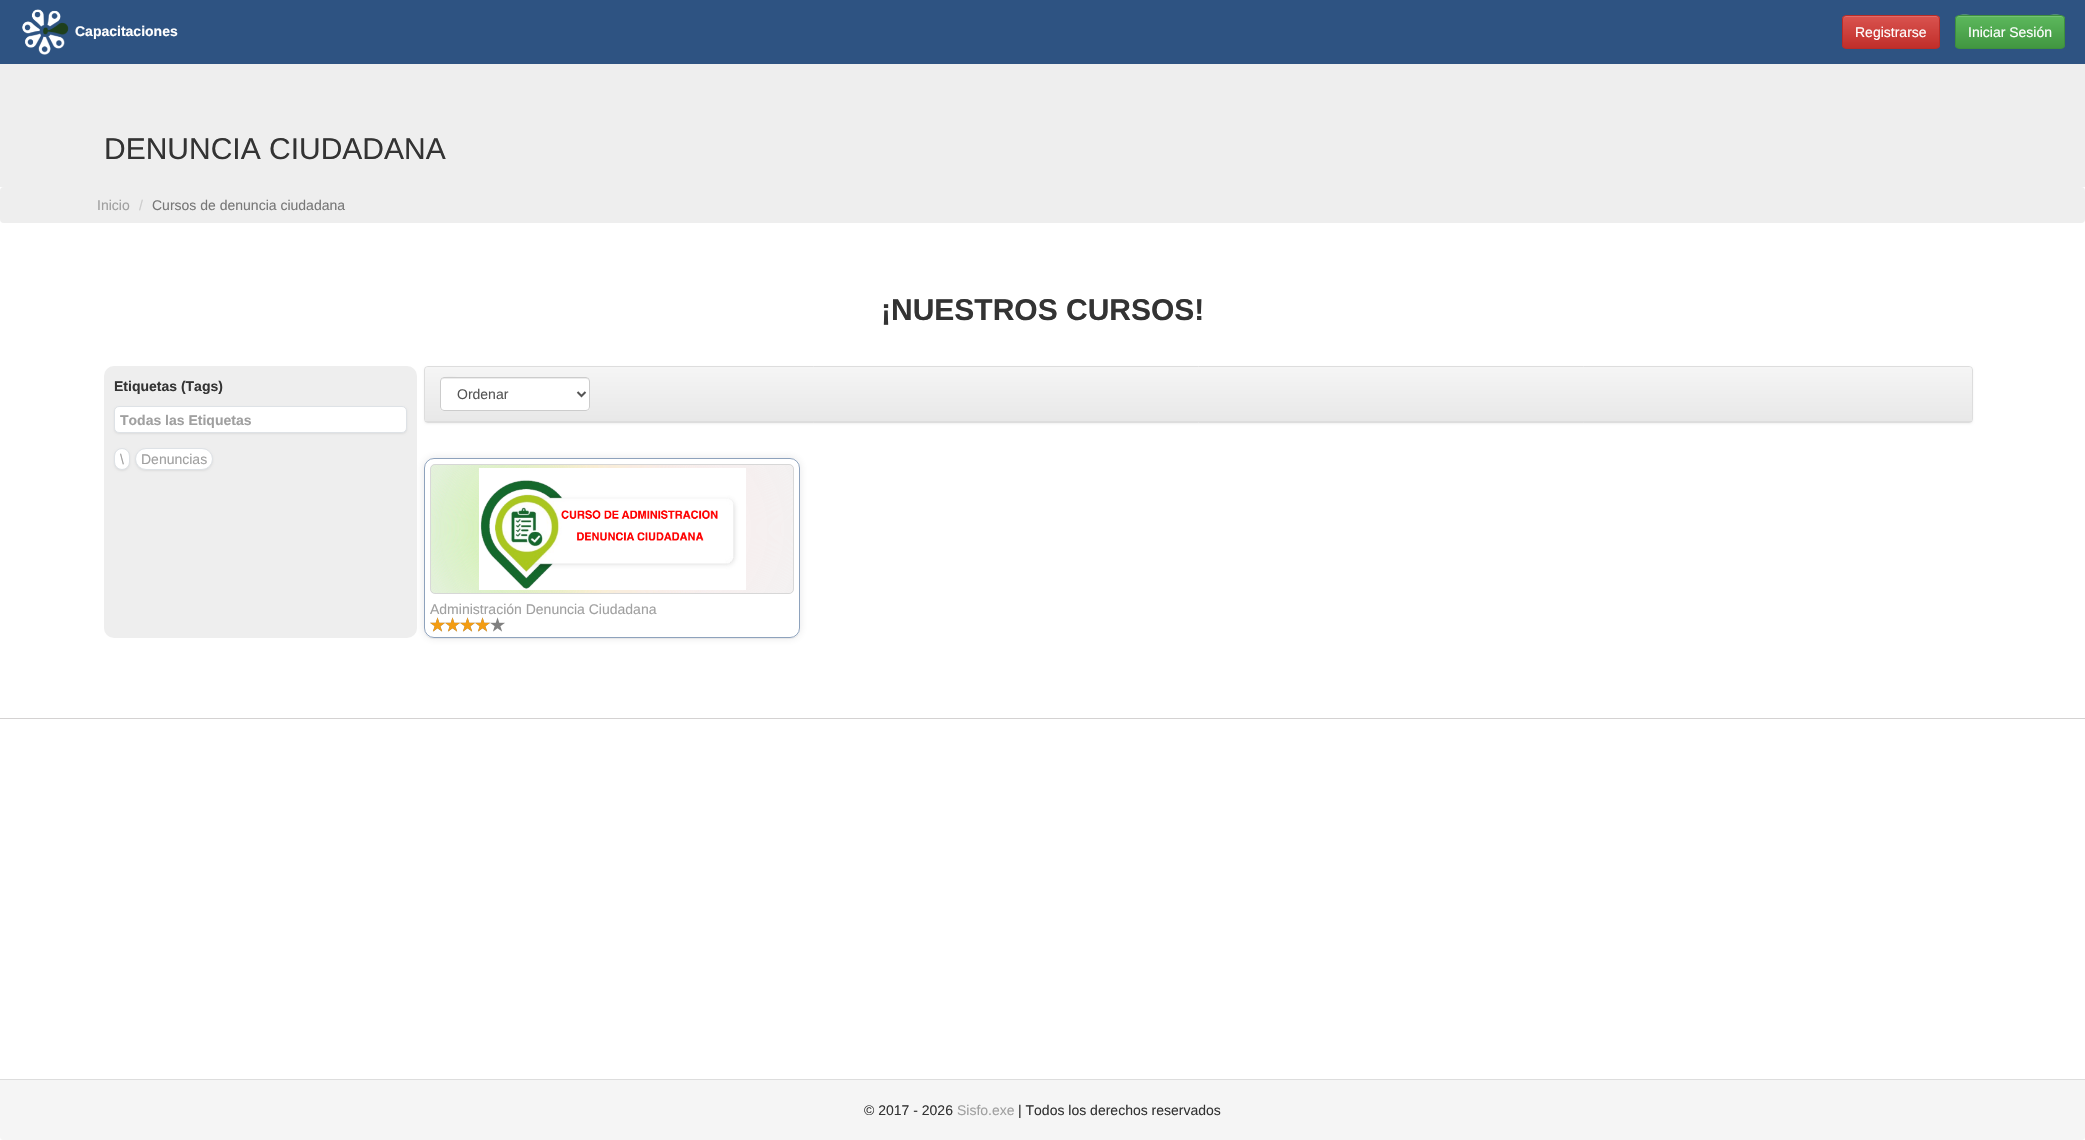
#include "include/core/SkBlurTypes.h"
#include "include/core/SkCanvas.h"
#include "include/core/SkData.h"
#include "include/core/SkFont.h"
#include "include/core/SkFontMgr.h"
#include "include/core/SkImage.h"
#include "include/core/SkMaskFilter.h"
#include "include/core/SkPaint.h"
#include "include/core/SkPathBuilder.h"
#include "include/core/SkTextBlob.h"
#include "include/effects/SkDashPathEffect.h"
#include "include/effects/SkGradientShader.h"
#include "include/utils/SkParsePath.h"

extern sk_sp<SkFontMgr> fontMgr;

void draw(SkCanvas* canvas) {
  SkPaint p;
  p.setAntiAlias(true);
  canvas->clear(SK_ColorWHITE);
  p.setColor(SkColorSetRGB(46, 83, 130));
  canvas->drawRect(SkRect::MakeLTRB(0, 0, 2085, 64), p);
  canvas->drawImageRect(SkImages::DeferredFromEncodedData(SkData::MakeFromFileName("images/1.png")), SkRect::MakeLTRB(22, 9, 69, 55), SkSamplingOptions());
  canvas->save();
  canvas->clipPath(SkPathBuilder().moveTo(1846, 15).lineTo(1936, 15).cubicTo(1938, 15, 1940, 17, 1940, 19).lineTo(1940, 45).cubicTo(1940, 47, 1938, 49, 1936, 49).lineTo(1846, 49).cubicTo(1844, 49, 1842, 47, 1842, 45).lineTo(1842, 19).cubicTo(1842, 17, 1844, 15, 1846, 15).close().detach(), true);
  {
    const SkColor colors[] = {SkColorSetRGB(217, 83, 79), SkColorSetRGB(193, 46, 42)};
    const float stops[] = {0, 1};
    const SkPoint ends[] = {{1891, 16}, {1891, 48}};
    p.setShader(SkGradientShader::MakeLinear(ends, colors, stops, 2, SkTileMode::kClamp));
    p.setAlpha(255);
  }
  canvas->drawRect(SkRect::MakeLTRB(1842, 16, 1940, 48), p);
  canvas->restore();
  p.setShader(nullptr);
  p.setColor(SkColorSetRGB(223, 108, 105));
  canvas->drawPath(SkPathBuilder().moveTo(1846, 17).lineTo(1936, 17).cubicTo(1938, 17, 1939, 18, 1939, 20).cubicTo(1939, 12, 1924, 16, 1921, 16).lineTo(1861, 16).cubicTo(1858, 16, 1843, 12, 1843, 20).cubicTo(1843, 18, 1844, 17, 1846, 17).close().detach(), p);
  p.setStyle(SkPaint::kStroke_Style);
  p.setStrokeWidth(1);
  p.setColor(SkColorSetRGB(185, 44, 40));
  canvas->drawRoundRect(SkRect::MakeLTRB(1842.5f, 15.5f, 1939.5f, 48.5f), 3.5f, 3.5f, p);
  canvas->save();
  canvas->clipPath(SkPathBuilder().moveTo(1959, 15).lineTo(2061, 15).cubicTo(2063, 15, 2065, 17, 2065, 19).lineTo(2065, 45).cubicTo(2065, 47, 2063, 49, 2061, 49).lineTo(1959, 49).cubicTo(1957, 49, 1955, 47, 1955, 45).lineTo(1955, 19).cubicTo(1955, 17, 1957, 15, 1959, 15).close().detach(), true);
  p.setStyle(SkPaint::kFill_Style);
  {
    const SkColor colors[] = {SkColorSetRGB(92, 184, 92), SkColorSetRGB(65, 150, 65)};
    const float stops[] = {0, 1};
    const SkPoint ends[] = {{2010, 16}, {2010, 48}};
    p.setShader(SkGradientShader::MakeLinear(ends, colors, stops, 2, SkTileMode::kClamp));
    p.setAlpha(255);
  }
  canvas->drawRect(SkRect::MakeLTRB(1955, 16, 2065, 48), p);
  canvas->restore();
  p.setShader(nullptr);
  p.setColor(SkColorSetRGB(116, 194, 116));
  canvas->drawPath(SkPathBuilder().moveTo(1959, 17).lineTo(2061, 17).cubicTo(2063, 17, 2064, 18, 2064, 20).cubicTo(2064, 11, 2046, 16, 2044, 16).lineTo(1976, 16).cubicTo(1974, 16, 1956, 11, 1956, 20).cubicTo(1956, 18, 1957, 17, 1959, 17).close().detach(), p);
  p.setStyle(SkPaint::kStroke_Style);
  p.setColor(SkColorSetRGB(62, 143, 62));
  canvas->drawRoundRect(SkRect::MakeLTRB(1955.5f, 15.5f, 2064.5f, 48.5f), 3.5f, 3.5f, p);
  p.setStyle(SkPaint::kFill_Style);
  p.setColor(SkColorSetRGB(238, 238, 238));
  canvas->drawRect(SkRect::MakeLTRB(0, 64, 2085, 187), p);
  canvas->drawRoundRect(SkRect::MakeLTRB(0, 187, 2085, 223), 4, 4, p);
  canvas->drawRoundRect(SkRect::MakeLTRB(104, 366, 417, 638), 10, 10, p);
  p.setColor(SkColorSetARGB(18, 0, 0, 0));
  p.setMaskFilter(SkMaskFilter::MakeBlur(kNormal_SkBlurStyle, 1));
  canvas->drawRoundRect(SkRect::MakeLTRB(114, 407, 407, 434), 5, 5, p);
  p.setMaskFilter(nullptr);
  p.setColor(SK_ColorWHITE);
  canvas->drawRoundRect(SkRect::MakeLTRB(114.5f, 406.5f, 406.5f, 432.5f), 4.5f, 4.5f, p);
  p.setStyle(SkPaint::kStroke_Style);
  p.setColor(SkColorSetRGB(222, 226, 230));
  canvas->drawRoundRect(SkRect::MakeLTRB(114.5f, 406.5f, 406.5f, 432.5f), 4.5f, 4.5f, p);
  p.setStyle(SkPaint::kFill_Style);
  p.setColor(SkColorSetARGB(18, 0, 0, 0));
  p.setMaskFilter(SkMaskFilter::MakeBlur(kNormal_SkBlurStyle, 1));
  canvas->drawRoundRect(SkRect::MakeLTRB(114, 449, 130, 471), 8, 8, p);
  p.setMaskFilter(nullptr);
  p.setColor(SK_ColorWHITE);
  canvas->drawRoundRect(SkRect::MakeLTRB(114.5f, 448.5f, 129.5f, 469.5f), 7.5f, 7.5f, p);
  p.setStyle(SkPaint::kStroke_Style);
  p.setColor(SkColorSetRGB(222, 226, 230));
  canvas->drawRoundRect(SkRect::MakeLTRB(114.5f, 448.5f, 129.5f, 469.5f), 7.5f, 7.5f, p);
  p.setStyle(SkPaint::kFill_Style);
  p.setColor(SkColorSetARGB(18, 0, 0, 0));
  p.setMaskFilter(SkMaskFilter::MakeBlur(kNormal_SkBlurStyle, 1));
  canvas->drawRoundRect(SkRect::MakeLTRB(135, 449, 213, 471), 11, 11, p);
  p.setMaskFilter(nullptr);
  p.setColor(SK_ColorWHITE);
  canvas->drawRoundRect(SkRect::MakeLTRB(135.5f, 448.5f, 212.5f, 469.5f), 10.5f, 10.5f, p);
  p.setStyle(SkPaint::kStroke_Style);
  p.setColor(SkColorSetRGB(222, 226, 230));
  canvas->drawRoundRect(SkRect::MakeLTRB(135.5f, 448.5f, 212.5f, 469.5f), 10.5f, 10.5f, p);
  p.setStyle(SkPaint::kFill_Style);
  p.setColor(SkColorSetARGB(13, 0, 0, 0));
  p.setMaskFilter(SkMaskFilter::MakeBlur(kNormal_SkBlurStyle, 1));
  canvas->drawRoundRect(SkRect::MakeLTRB(424, 367, 1973, 424), 4, 4, p);
  p.setMaskFilter(nullptr);
  p.setStyle(SkPaint::kStroke_Style);
  p.setColor(SkColorSetRGB(221, 221, 221));
  canvas->drawRoundRect(SkRect::MakeLTRB(424.5f, 366.5f, 1972.5f, 422.5f), 3.5f, 3.5f, p);
  p.setStyle(SkPaint::kFill_Style);
  {
    const SkColor colors[] = {SkColorSetRGB(245, 245, 245), SkColorSetRGB(232, 232, 232)};
    const float stops[] = {0, 1};
    const SkPoint ends[] = {{1199, 367}, {1199, 421}};
    p.setShader(SkGradientShader::MakeLinear(ends, colors, stops, 2, SkTileMode::kClamp));
    p.setAlpha(255);
  }
  canvas->drawPath(SkPathBuilder().moveTo(428, 367).lineTo(1969, 367).cubicTo(1970.5f, 367, 1972, 368.5f, 1972, 370).lineTo(1972, 421).lineTo(425, 421).lineTo(425, 370).cubicTo(425, 368.5f, 426.5f, 367, 428, 367).close().detach(), p);
  p.setShader(nullptr);
  p.setColor(SkColorSetRGB(221, 221, 221));
  canvas->drawRect(SkRect::MakeLTRB(425, 421, 1972, 422), p);
  p.setColor(SK_ColorWHITE);
  canvas->drawRoundRect(SkRect::MakeLTRB(440, 377, 590, 411), 4, 4, p);
  p.setColor(SkColorSetRGB(236, 236, 236));
  canvas->drawPath(SkPathBuilder().moveTo(444, 379).lineTo(586, 379).cubicTo(588, 379, 589, 380, 589, 382).cubicTo(589, 380, 589, 379, 587, 378).lineTo(468, 378).cubicTo(460, 378, 441, 373, 441, 382).cubicTo(441, 380, 442, 379, 444, 379).close().detach(), p);
  p.setStyle(SkPaint::kStroke_Style);
  p.setColor(SkColorSetRGB(204, 204, 204));
  canvas->drawRoundRect(SkRect::MakeLTRB(440.5f, 377.5f, 589.5f, 410.5f), 3.5f, 3.5f, p);
  p.setStrokeWidth(2);
  p.setColor(SkColorSetRGB(85, 85, 85));
  canvas->drawPath(SkPathBuilder().moveTo(577.5f, 392).lineTo(581.5f, 396).lineTo(585.5f, 392).detach(), p);
  canvas->save();
  canvas->clipPath(SkPathBuilder(SkPathFillType::kEvenOdd).moveTo(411, 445).lineTo(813, 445).lineTo(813, 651).lineTo(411, 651).close().moveTo(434, 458).lineTo(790, 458).cubicTo(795.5f, 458, 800, 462.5f, 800, 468).lineTo(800, 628).cubicTo(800, 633.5f, 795.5f, 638, 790, 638).lineTo(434, 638).cubicTo(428.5f, 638, 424, 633.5f, 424, 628).lineTo(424, 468).cubicTo(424, 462.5f, 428.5f, 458, 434, 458).close().detach(), true);
  p.setStyle(SkPaint::kFill_Style);
  p.setColor(SkColorSetARGB(26, 17, 17, 26));
  p.setMaskFilter(SkMaskFilter::MakeBlur(kNormal_SkBlurStyle, 4));
  canvas->drawRoundRect(SkRect::MakeLTRB(424, 458, 800, 638), 10, 10, p);
  p.setMaskFilter(nullptr);
  canvas->restore();
  p.setColor(SkColorSetARGB(13, 17, 17, 26));
  canvas->drawPath(SkPathBuilder().moveTo(424, 628).lineTo(424, 629).cubicTo(424, 635, 428, 639, 434, 639).lineTo(790, 639).cubicTo(796, 639, 800, 635, 800, 629).lineTo(800, 628).cubicTo(800, 634, 796, 638, 790, 638).lineTo(434, 638).cubicTo(428, 638, 424, 634, 424, 628).close().detach(), p);
  p.setStyle(SkPaint::kStroke_Style);
  p.setStrokeWidth(1);
  p.setColor(SkColorSetARGB(128, 30, 70, 121));
  canvas->drawRoundRect(SkRect::MakeLTRB(424.5f, 458.5f, 799.5f, 637.5f), 9.5f, 9.5f, p);
  p.setStyle(SkPaint::kFill_Style);
  p.setColor(SkColorSetRGB(240, 240, 240));
  canvas->drawRoundRect(SkRect::MakeLTRB(430, 464, 794, 594), 5, 5, p);
  p.setStyle(SkPaint::kStroke_Style);
  p.setColor(SkColorSetARGB(26, 0, 0, 0));
  canvas->drawRoundRect(SkRect::MakeLTRB(430.5f, 464.5f, 793.5f, 593.5f), 4.5f, 4.5f, p);
  canvas->drawImageRect(SkImages::DeferredFromEncodedData(SkData::MakeFromFileName("images/2.png")), SkRect::MakeLTRB(431, 465, 793, 593), SkSamplingOptions());
  canvas->drawImageRect(SkImages::DeferredFromEncodedData(SkData::MakeFromFileName("images/3.png")), SkRect::MakeLTRB(479, 468, 746, 590), SkSamplingOptions());
  canvas->drawImageRect(SkImages::DeferredFromEncodedData(SkData::MakeFromFileName("images/4.png")), SkRect::MakeLTRB(430, 617, 445, 632), SkSamplingOptions());
  canvas->drawImageRect(SkImages::DeferredFromEncodedData(SkData::MakeFromFileName("images/4.png")), SkRect::MakeLTRB(445, 617, 460, 632), SkSamplingOptions());
  canvas->drawImageRect(SkImages::DeferredFromEncodedData(SkData::MakeFromFileName("images/4.png")), SkRect::MakeLTRB(460, 617, 475, 632), SkSamplingOptions());
  canvas->drawImageRect(SkImages::DeferredFromEncodedData(SkData::MakeFromFileName("images/4.png")), SkRect::MakeLTRB(475, 617, 490, 632), SkSamplingOptions());
  canvas->drawImageRect(SkImages::DeferredFromEncodedData(SkData::MakeFromFileName("images/4.png")), SkRect::MakeLTRB(490, 617, 505, 632), SkSamplingOptions());
  canvas->drawImageRect(SkImages::DeferredFromEncodedData(SkData::MakeFromFileName("images/5.png")), SkRect::MakeLTRB(430, 617, 445, 632), SkSamplingOptions());
  canvas->drawImageRect(SkImages::DeferredFromEncodedData(SkData::MakeFromFileName("images/5.png")), SkRect::MakeLTRB(445, 617, 460, 632), SkSamplingOptions());
  canvas->drawImageRect(SkImages::DeferredFromEncodedData(SkData::MakeFromFileName("images/5.png")), SkRect::MakeLTRB(460, 617, 475, 632), SkSamplingOptions());
  canvas->drawImageRect(SkImages::DeferredFromEncodedData(SkData::MakeFromFileName("images/5.png")), SkRect::MakeLTRB(475, 617, 490, 632), SkSamplingOptions());
  p.setStyle(SkPaint::kFill_Style);
  p.setColor(SkColorSetRGB(212, 210, 210));
  canvas->drawRect(SkRect::MakeLTRB(0, 718, 2085, 719), p);
  p.setColor(SkColorSetRGB(245, 245, 245));
  canvas->drawPath(SkPathBuilder().moveTo(0, 1079).lineTo(2085, 1079).lineTo(2085, 1137).cubicTo(2085, 1138.5f, 2083.5f, 1140, 2082, 1140).lineTo(3, 1140).cubicTo(1.5f, 1140, 0, 1138.5f, 0, 1137).close().detach(), p);
  p.setColor(SkColorSetRGB(221, 221, 221));
  canvas->drawRect(SkRect::MakeLTRB(0, 1079, 2085, 1080), p);
  SkFont font1(fontMgr->matchFamilyStyle("Liberation Sans", SkFontStyle::Bold()), 14);
  font1.setSubpixel(true);
  p.setColor(SK_ColorWHITE);
  canvas->drawString("Capacitaciones", 75, 36, font1, p);
  SkFont font2(fontMgr->matchFamilyStyle("Liberation Sans", SkFontStyle::Normal()), 14);
  font2.setSubpixel(true);
  canvas->drawString("Registrarse", 1855, 37, font2, p);
  canvas->drawString("Iniciar Sesión", 1968, 37, font2, p);
  SkFont font3(fontMgr->matchFamilyStyle("Liberation Sans", SkFontStyle::Normal()), 30);
  font3.setSubpixel(true);
  p.setColor(SkColorSetRGB(51, 51, 51));
  canvas->drawString("DENUNCIA CIUDADANA", 104, 159, font3, p);
  p.setColor(SkColorSetRGB(160, 160, 160));
  canvas->drawString("Inicio", 97, 210, font2, p);
  p.setColor(SkColorSetRGB(204, 204, 204));
  canvas->drawString("/", 139, 210, font2, p);
  p.setColor(SkColorSetRGB(119, 119, 119));
  canvas->drawString("Cursos de denuncia ciudadana", 152, 210, font2, p);
  SkFont font4(fontMgr->matchFamilyStyle("Liberation Sans", SkFontStyle::Bold()), 30);
  font4.setSubpixel(true);
  p.setColor(SkColorSetRGB(51, 51, 51));
  canvas->drawString("¡NUESTROS CURSOS!", 881, 320, font4, p);
  canvas->drawString("Etiquetas (Tags)", 114, 391, font1, p);
  p.setColor(SkColorSetRGB(160, 160, 160));
  canvas->drawString("Todas las Etiquetas", 120, 425, font1, p);
  canvas->drawString("\\", 120, 464, font2, p);
  canvas->drawString("Denuncias", 141, 464, font2, p);
  p.setColor(SkColorSetRGB(85, 85, 85));
  canvas->drawString("Ordenar", 457, 399, font2, p);
  p.setColor(SkColorSetRGB(160, 160, 160));
  canvas->drawString("Administración Denuncia Ciudadana", 430, 614, font2, p);
  p.setColor(SkColorSetRGB(51, 51, 51));
  canvas->drawString("© 2017 - 2026", 864, 1115, font2, p);
  p.setColor(SkColorSetRGB(160, 160, 160));
  canvas->drawString("Sisfo.exe", 957, 1115, font2, p);
  p.setColor(SkColorSetRGB(51, 51, 51));
  canvas->drawString("| Todos los derechos reservados", 1018, 1115, font2, p);
}
